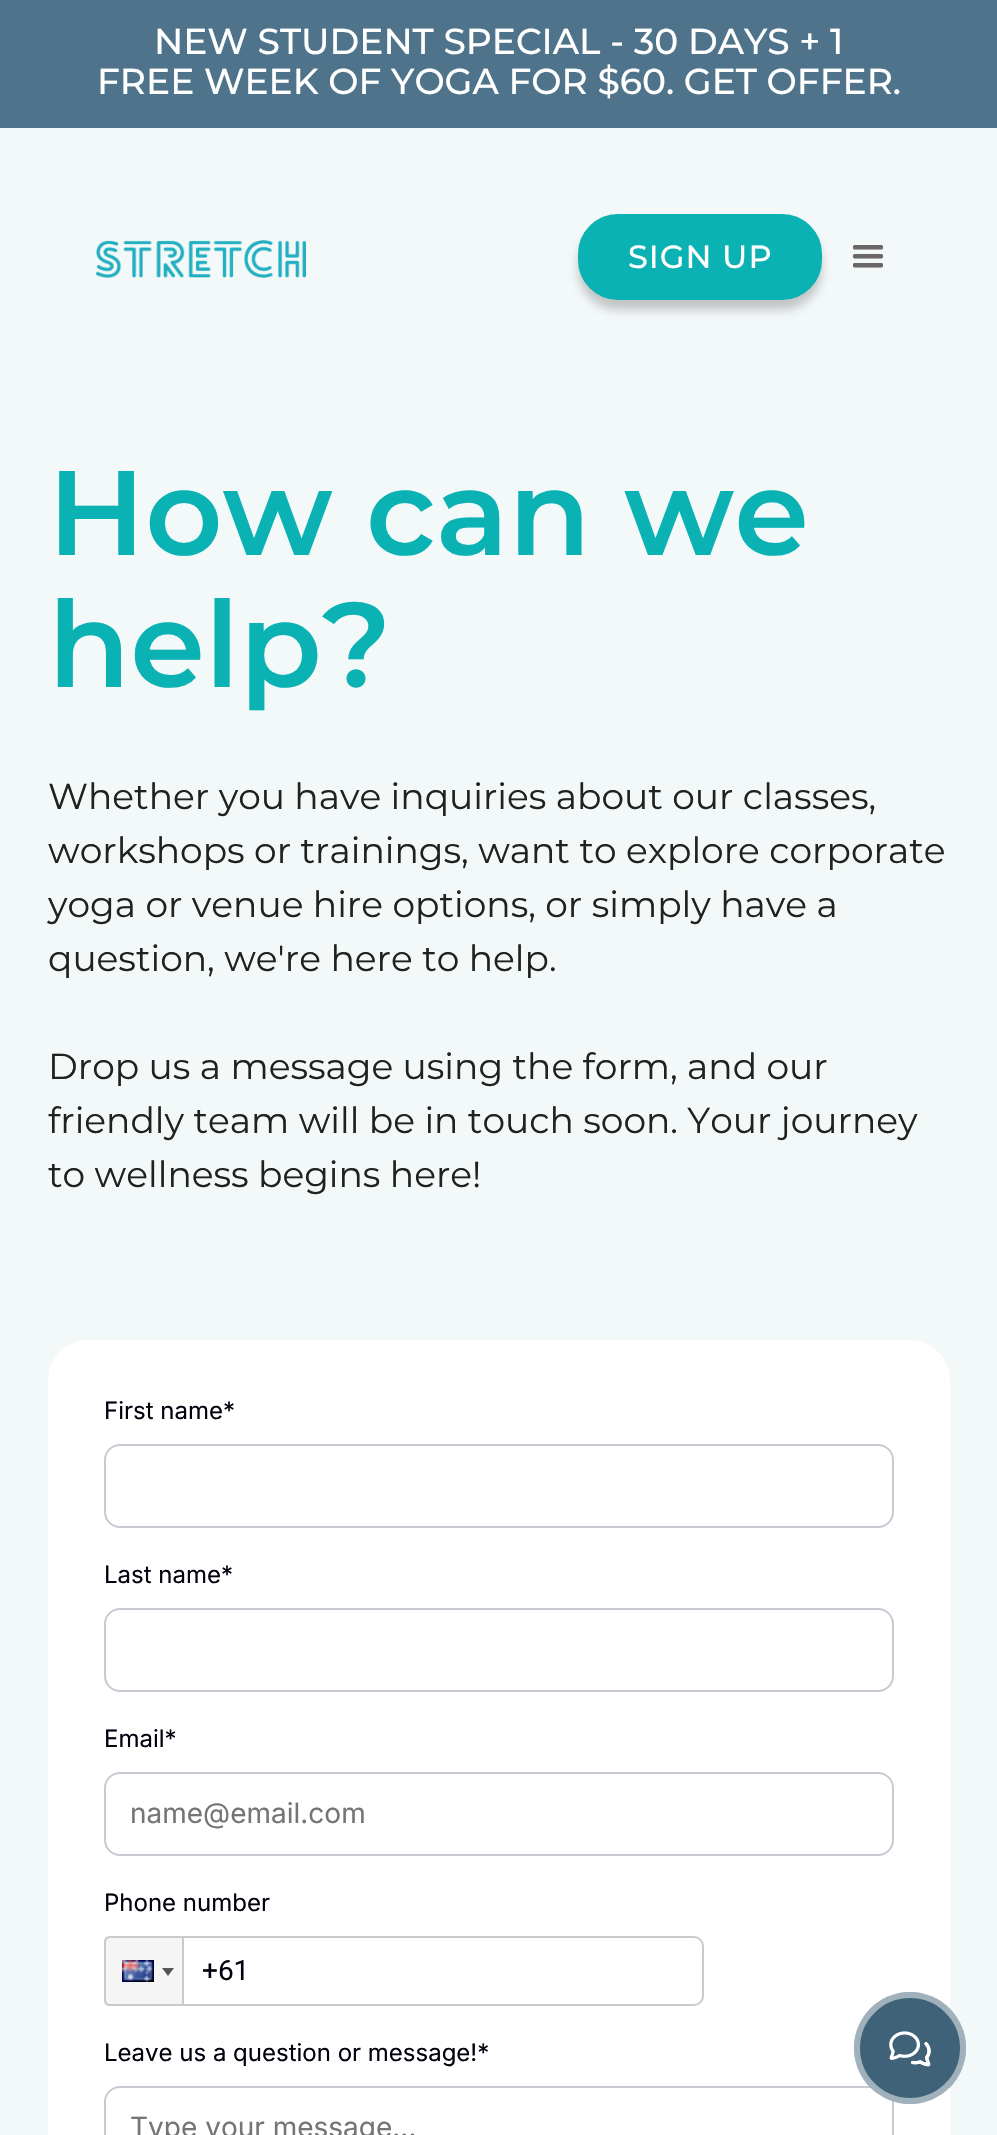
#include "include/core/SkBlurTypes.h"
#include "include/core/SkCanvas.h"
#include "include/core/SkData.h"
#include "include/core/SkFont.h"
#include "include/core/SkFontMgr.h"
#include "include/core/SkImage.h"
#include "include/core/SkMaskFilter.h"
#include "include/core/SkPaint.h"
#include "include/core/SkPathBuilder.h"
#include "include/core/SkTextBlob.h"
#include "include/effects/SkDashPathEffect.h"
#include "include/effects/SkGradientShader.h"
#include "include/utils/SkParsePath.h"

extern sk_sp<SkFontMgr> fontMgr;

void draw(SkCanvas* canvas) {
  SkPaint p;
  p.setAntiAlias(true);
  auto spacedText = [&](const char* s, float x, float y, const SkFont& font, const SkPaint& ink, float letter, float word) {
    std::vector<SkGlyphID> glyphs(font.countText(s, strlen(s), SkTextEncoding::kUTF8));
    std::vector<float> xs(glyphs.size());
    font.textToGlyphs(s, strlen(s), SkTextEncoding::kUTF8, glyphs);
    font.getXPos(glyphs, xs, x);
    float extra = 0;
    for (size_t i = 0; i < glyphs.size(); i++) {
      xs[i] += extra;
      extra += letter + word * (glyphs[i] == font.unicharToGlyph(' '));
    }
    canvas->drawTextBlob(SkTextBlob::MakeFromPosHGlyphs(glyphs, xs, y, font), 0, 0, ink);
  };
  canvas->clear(SkColorSetRGB(243, 248, 248));
  p.setColor(SkColorSetRGB(78, 115, 138));
  canvas->drawRect(SkRect::MakeLTRB(0, 0, 997, 128), p);
  canvas->drawImageRect(SkImages::DeferredFromEncodedData(SkData::MakeFromFileName("images/1.png")), SkRect::MakeLTRB(96, 240, 306, 278), SkSamplingOptions());
  p.setColor(SkColorSetARGB(51, 0, 0, 0));
  p.setMaskFilter(SkMaskFilter::MakeBlur(kNormal_SkBlurStyle, 5));
  canvas->drawRoundRect(SkRect::MakeLTRB(578, 224, 822, 310), 40, 40, p);
  p.setMaskFilter(nullptr);
  p.setColor(SkColorSetRGB(10, 178, 180));
  canvas->drawRoundRect(SkRect::MakeLTRB(579, 215, 821, 299), 39, 39, p);
  p.setStyle(SkPaint::kStroke_Style);
  p.setStrokeWidth(2);
  canvas->drawRoundRect(SkRect::MakeLTRB(579, 215, 821, 299), 39, 39, p);
  canvas->drawImageRect(SkImages::DeferredFromEncodedData(SkData::MakeFromFileName("images/2.png")), SkRect::MakeLTRB(853, 245, 883, 268), SkSamplingOptions());
  p.setStyle(SkPaint::kFill_Style);
  p.setColor(SK_ColorWHITE);
  canvas->drawRoundRect(SkRect::MakeLTRB(48, 1340, 950, 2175), 40, 40, p);
  p.setStyle(SkPaint::kStroke_Style);
  p.setColor(SkColorSetRGB(200, 201, 211));
  canvas->drawRoundRect(SkRect::MakeLTRB(105, 1445, 893, 1527), 15, 15, p);
  canvas->drawRoundRect(SkRect::MakeLTRB(105, 1609, 893, 1691), 15, 15, p);
  canvas->drawRoundRect(SkRect::MakeLTRB(105, 1773, 893, 1855), 15, 15, p);
  p.setColor(SkColorSetRGB(202, 202, 202));
  canvas->drawRoundRect(SkRect::MakeLTRB(105, 1937, 703, 2005), 9, 9, p);
  p.setStyle(SkPaint::kFill_Style);
  p.setColor(SkColorSetRGB(245, 245, 245));
  canvas->drawPath(SkPathBuilder().moveTo(110, 1937).lineTo(183, 1937).lineTo(183, 2005).lineTo(110, 2005).cubicTo(107, 2005, 105, 2003, 105, 2000).lineTo(105, 1942).cubicTo(105, 1939, 107, 1937, 110, 1937).close().detach(), p);
  p.setStyle(SkPaint::kStroke_Style);
  p.setColor(SkColorSetRGB(202, 202, 202));
  canvas->drawPath(SkPathBuilder().moveTo(110, 1937).lineTo(183, 1937).lineTo(183, 2005).lineTo(110, 2005).cubicTo(107, 2005, 105, 2003, 105, 2000).lineTo(105, 1942).cubicTo(105, 1939, 107, 1937, 110, 1937).close().detach(), p);
  canvas->drawImageRect(SkImages::DeferredFromEncodedData(SkData::MakeFromFileName("images/3.png")), SkRect::MakeLTRB(122, 1960, 154, 1982), SkSamplingOptions());
  p.setStyle(SkPaint::kFill_Style);
  p.setColor(SkColorSetRGB(85, 85, 85));
  canvas->drawPath(SkPathBuilder().moveTo(162, 1968).lineTo(174, 1968).lineTo(168, 1976).close().detach(), p);
  p.setStyle(SkPaint::kStroke_Style);
  p.setColor(SkColorSetRGB(200, 201, 211));
  canvas->drawRoundRect(SkRect::MakeLTRB(105, 2087, 893, 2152), 15, 15, p);
  p.setStyle(SkPaint::kFill_Style);
  p.setColor(SkColorSetRGB(63, 98, 120));
  canvas->drawCircle(910, 2048, 56, p);
  p.setStyle(SkPaint::kStroke_Style);
  p.setStrokeWidth(6);
  p.setColor(SkColorSetARGB(128, 255, 255, 255));
  canvas->drawCircle(910, 2048, 53, p);
  canvas->drawImageRect(SkImages::DeferredFromEncodedData(SkData::MakeFromFileName("images/4.png")), SkRect::MakeLTRB(889, 2031, 931, 2067), SkSamplingOptions());
  SkFont font1(fontMgr->matchFamilyStyle("Montserrat", SkFontStyle(500, SkFontStyle::kNormal_Width, SkFontStyle::kUpright_Slant)), 36);
  font1.setSubpixel(true);
  p.setStyle(SkPaint::kFill_Style);
  p.setColor(SK_ColorWHITE);
  canvas->drawString("NEW STUDENT SPECIAL - 30 DAYS + 1", 154, 54, font1, p);
  canvas->drawString("FREE WEEK OF YOGA FOR $60. GET OFFER.", 97, 94, font1, p);
  SkFont font2(fontMgr->matchFamilyStyle("Montserrat", SkFontStyle(500, SkFontStyle::kNormal_Width, SkFontStyle::kUpright_Slant)), 32);
  font2.setSubpixel(true);
  spacedText("SIGN UP", 628, 268, font2, p, 1, 0);
  SkFont font3(fontMgr->matchFamilyStyle("Montserrat", SkFontStyle(600, SkFontStyle::kNormal_Width, SkFontStyle::kUpright_Slant)), 120);
  font3.setSubpixel(true);
  p.setColor(SkColorSetRGB(10, 178, 180));
  canvas->drawString("How can we", 48, 555, font3, p);
  canvas->drawString("help?", 48, 687, font3, p);
  SkFont font4(fontMgr->matchFamilyStyle("Montserrat", SkFontStyle(100, SkFontStyle::kNormal_Width, SkFontStyle::kUpright_Slant)), 36);
  font4.setSubpixel(true);
  p.setColor(SkColorSetRGB(33, 33, 33));
  canvas->drawString("Whether you have inquiries about our classes,", 48, 809, font4, p);
  canvas->drawString("workshops or trainings, want to explore corporate", 48, 863, font4, p);
  canvas->drawString("yoga or venue hire options, or simply have a", 48, 917, font4, p);
  canvas->drawString("question, we're here to help.", 48, 971, font4, p);
  canvas->drawString("Drop us a message using the form, and our", 48, 1079, font4, p);
  canvas->drawString("friendly team will be in touch soon. Your journey", 48, 1133, font4, p);
  canvas->drawString("to wellness begins here!", 48, 1187, font4, p);
  SkFont font5(fontMgr->matchFamilyStyle("Inter", SkFontStyle::Normal()), 24);
  font5.setSubpixel(true);
  p.setColor(SkColorSetRGB(3, 1, 13));
  canvas->drawString("First name*", 104, 1419, font5, p);
  canvas->drawString("Last name*", 104, 1583, font5, p);
  canvas->drawString("Email*", 104, 1747, font5, p);
  SkFont font6(fontMgr->matchFamilyStyle("Inter", SkFontStyle::Normal()), 28);
  font6.setSubpixel(true);
  p.setColor(SkColorSetRGB(117, 117, 117));
  canvas->drawString("name@email.com", 130, 1823, font6, p);
  p.setColor(SkColorSetRGB(3, 1, 13));
  canvas->drawString("Phone number", 104, 1911, font5, p);
  SkFont font7(fontMgr->matchFamilyStyle("Roboto", SkFontStyle::Normal()), 28);
  font7.setSubpixel(true);
  canvas->drawString("+61", 202, 1980, font7, p);
  canvas->drawString("Leave us a question or message!*", 104, 2061, font5, p);
  p.setColor(SkColorSetRGB(117, 117, 117));
  canvas->drawString("Type your message...", 130, 2137, font6, p);
}
